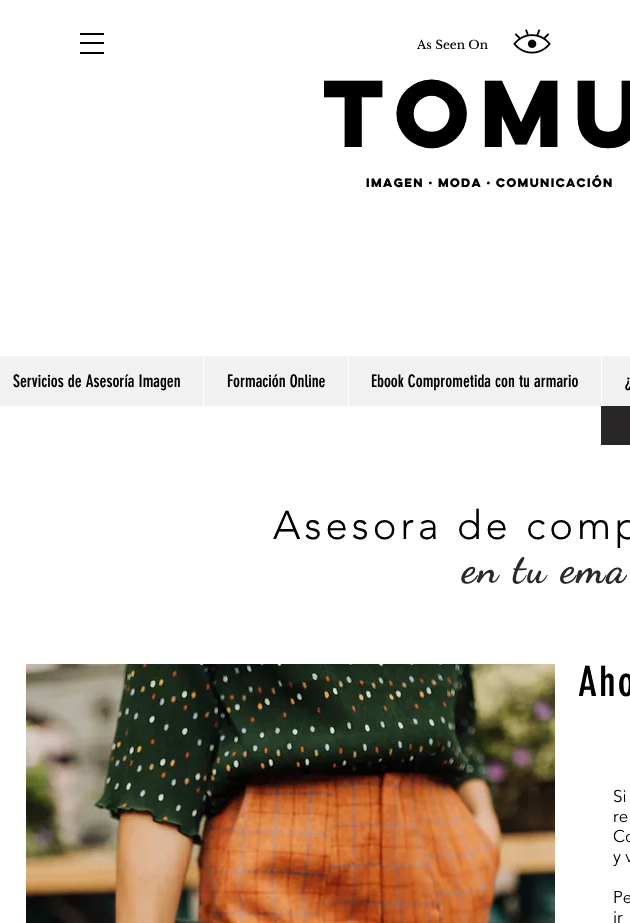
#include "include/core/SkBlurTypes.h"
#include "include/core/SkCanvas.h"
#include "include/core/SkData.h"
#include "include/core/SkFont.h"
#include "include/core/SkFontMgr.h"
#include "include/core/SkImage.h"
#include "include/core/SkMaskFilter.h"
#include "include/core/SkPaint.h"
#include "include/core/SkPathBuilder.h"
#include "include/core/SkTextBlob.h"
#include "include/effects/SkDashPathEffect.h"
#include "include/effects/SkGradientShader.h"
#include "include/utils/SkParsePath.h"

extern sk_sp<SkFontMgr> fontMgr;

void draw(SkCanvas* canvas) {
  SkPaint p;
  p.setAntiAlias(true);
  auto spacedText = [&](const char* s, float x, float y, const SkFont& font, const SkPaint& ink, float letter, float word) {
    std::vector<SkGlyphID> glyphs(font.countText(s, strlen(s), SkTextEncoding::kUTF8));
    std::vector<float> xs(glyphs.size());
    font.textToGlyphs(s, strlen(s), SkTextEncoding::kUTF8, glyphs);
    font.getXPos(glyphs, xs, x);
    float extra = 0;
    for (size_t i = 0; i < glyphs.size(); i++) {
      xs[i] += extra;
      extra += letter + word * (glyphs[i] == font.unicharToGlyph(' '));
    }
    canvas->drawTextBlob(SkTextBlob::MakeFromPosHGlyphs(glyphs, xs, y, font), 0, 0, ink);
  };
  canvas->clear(SK_ColorWHITE);
  p.setColor(SK_ColorBLACK);
  canvas->drawRect(SkRect::MakeLTRB(80, 33, 104, 35), p);
  canvas->drawRect(SkRect::MakeLTRB(80, 42, 104, 44), p);
  canvas->drawRect(SkRect::MakeLTRB(80, 52, 104, 54), p);
  canvas->drawImageRect(SkImages::DeferredFromEncodedData(SkData::MakeFromFileName("images/1.png")), SkRect::MakeLTRB(513, 29, 551, 54), SkSamplingOptions());
  p.setColor(SkColorSetRGB(241, 241, 241));
  canvas->drawRect(SkRect::MakeLTRB(0, 356, 630, 406), p);
  p.setColor(SK_ColorWHITE);
  canvas->drawRect(SkRect::MakeLTRB(203, 356, 204, 406), p);
  canvas->drawRect(SkRect::MakeLTRB(348, 356, 349, 406), p);
  canvas->drawRect(SkRect::MakeLTRB(601, 356, 602, 406), p);
  p.setColor(SkColorSetRGB(40, 38, 38));
  canvas->drawRect(SkRect::MakeLTRB(601, 406, 630, 445), p);
  canvas->drawImageRect(SkImages::DeferredFromEncodedData(SkData::MakeFromFileName("images/2.png")), SkRect::MakeLTRB(26, 664, 555, 923), SkSamplingOptions());
  SkFont font1(fontMgr->matchFamilyStyle("Libre Baskerville", SkFontStyle::Normal()), 12);
  font1.setSubpixel(true);
  p.setColor(SK_ColorBLACK);
  canvas->drawString("As Seen On", 417, 49, font1, p);
  SkFont font2(fontMgr->matchFamilyStyle("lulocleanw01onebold", SkFontStyle::Bold()), 85);
  font2.setSubpixel(true);
  spacedText("TOMU", 323, 147, font2, p, -8.5f, 0);
  SkFont font3(fontMgr->matchFamilyStyle("lulocleanw01onebold", SkFontStyle::Bold()), 11);
  font3.setSubpixel(true);
  spacedText("imagen · moda · comunicación", 366, 187, font3, p, -1.1f, 0);
  SkFont font4(fontMgr->matchFamilyStyle("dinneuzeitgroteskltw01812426", SkFontStyle::Normal()), 17);
  font4.setSubpixel(true);
  canvas->drawString("Servicios de Asesoría Imagen", 13, 387, font4, p);
  canvas->drawString("Formación Online", 227, 387, font4, p);
  canvas->drawString("Ebook Comprometida con tu armario", 371, 387, font4, p);
  canvas->drawString("¿", 625, 387, font4, p);
  SkFont font5(fontMgr->matchFamilyStyle("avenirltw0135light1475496", SkFontStyle(300, SkFontStyle::kNormal_Width, SkFontStyle::kUpright_Slant)), 40);
  font5.setSubpixel(true);
  spacedText("Asesora de comp", 273, 539, font5, p, 4, 0);
  SkFont font6(fontMgr->matchFamilyStyle("Dancing Script", SkFontStyle::Bold()), 42);
  font6.setSubpixel(true);
  p.setColor(SkColorSetRGB(41, 41, 41));
  spacedText("en tu ema", 462, 582, font6, p, 2, 0);
  SkFont font7(fontMgr->matchFamilyStyle("dinneuzeitgroteskltw01812426", SkFontStyle::Normal()), 41);
  font7.setSubpixel(true);
  p.setColor(SK_ColorBLACK);
  spacedText("Aho", 578, 696, font7, p, 2, 0);
  SkFont font8(fontMgr->matchFamilyStyle("avenirltw0135light1475496", SkFontStyle(300, SkFontStyle::kNormal_Width, SkFontStyle::kUpright_Slant)), 17);
  font8.setSubpixel(true);
  spacedText("Si", 613, 802, font8, p, 0, 11);
  spacedText("re", 613, 822, font8, p, 0, 11);
  spacedText("Co", 613, 842, font8, p, 0, 1);
  canvas->drawString("y v", 613, 862, font8, p);
  spacedText("Pe", 613, 903, font8, p, 0, 1);
  spacedText("ir", 613, 923, font8, p, 0, 1);
}
